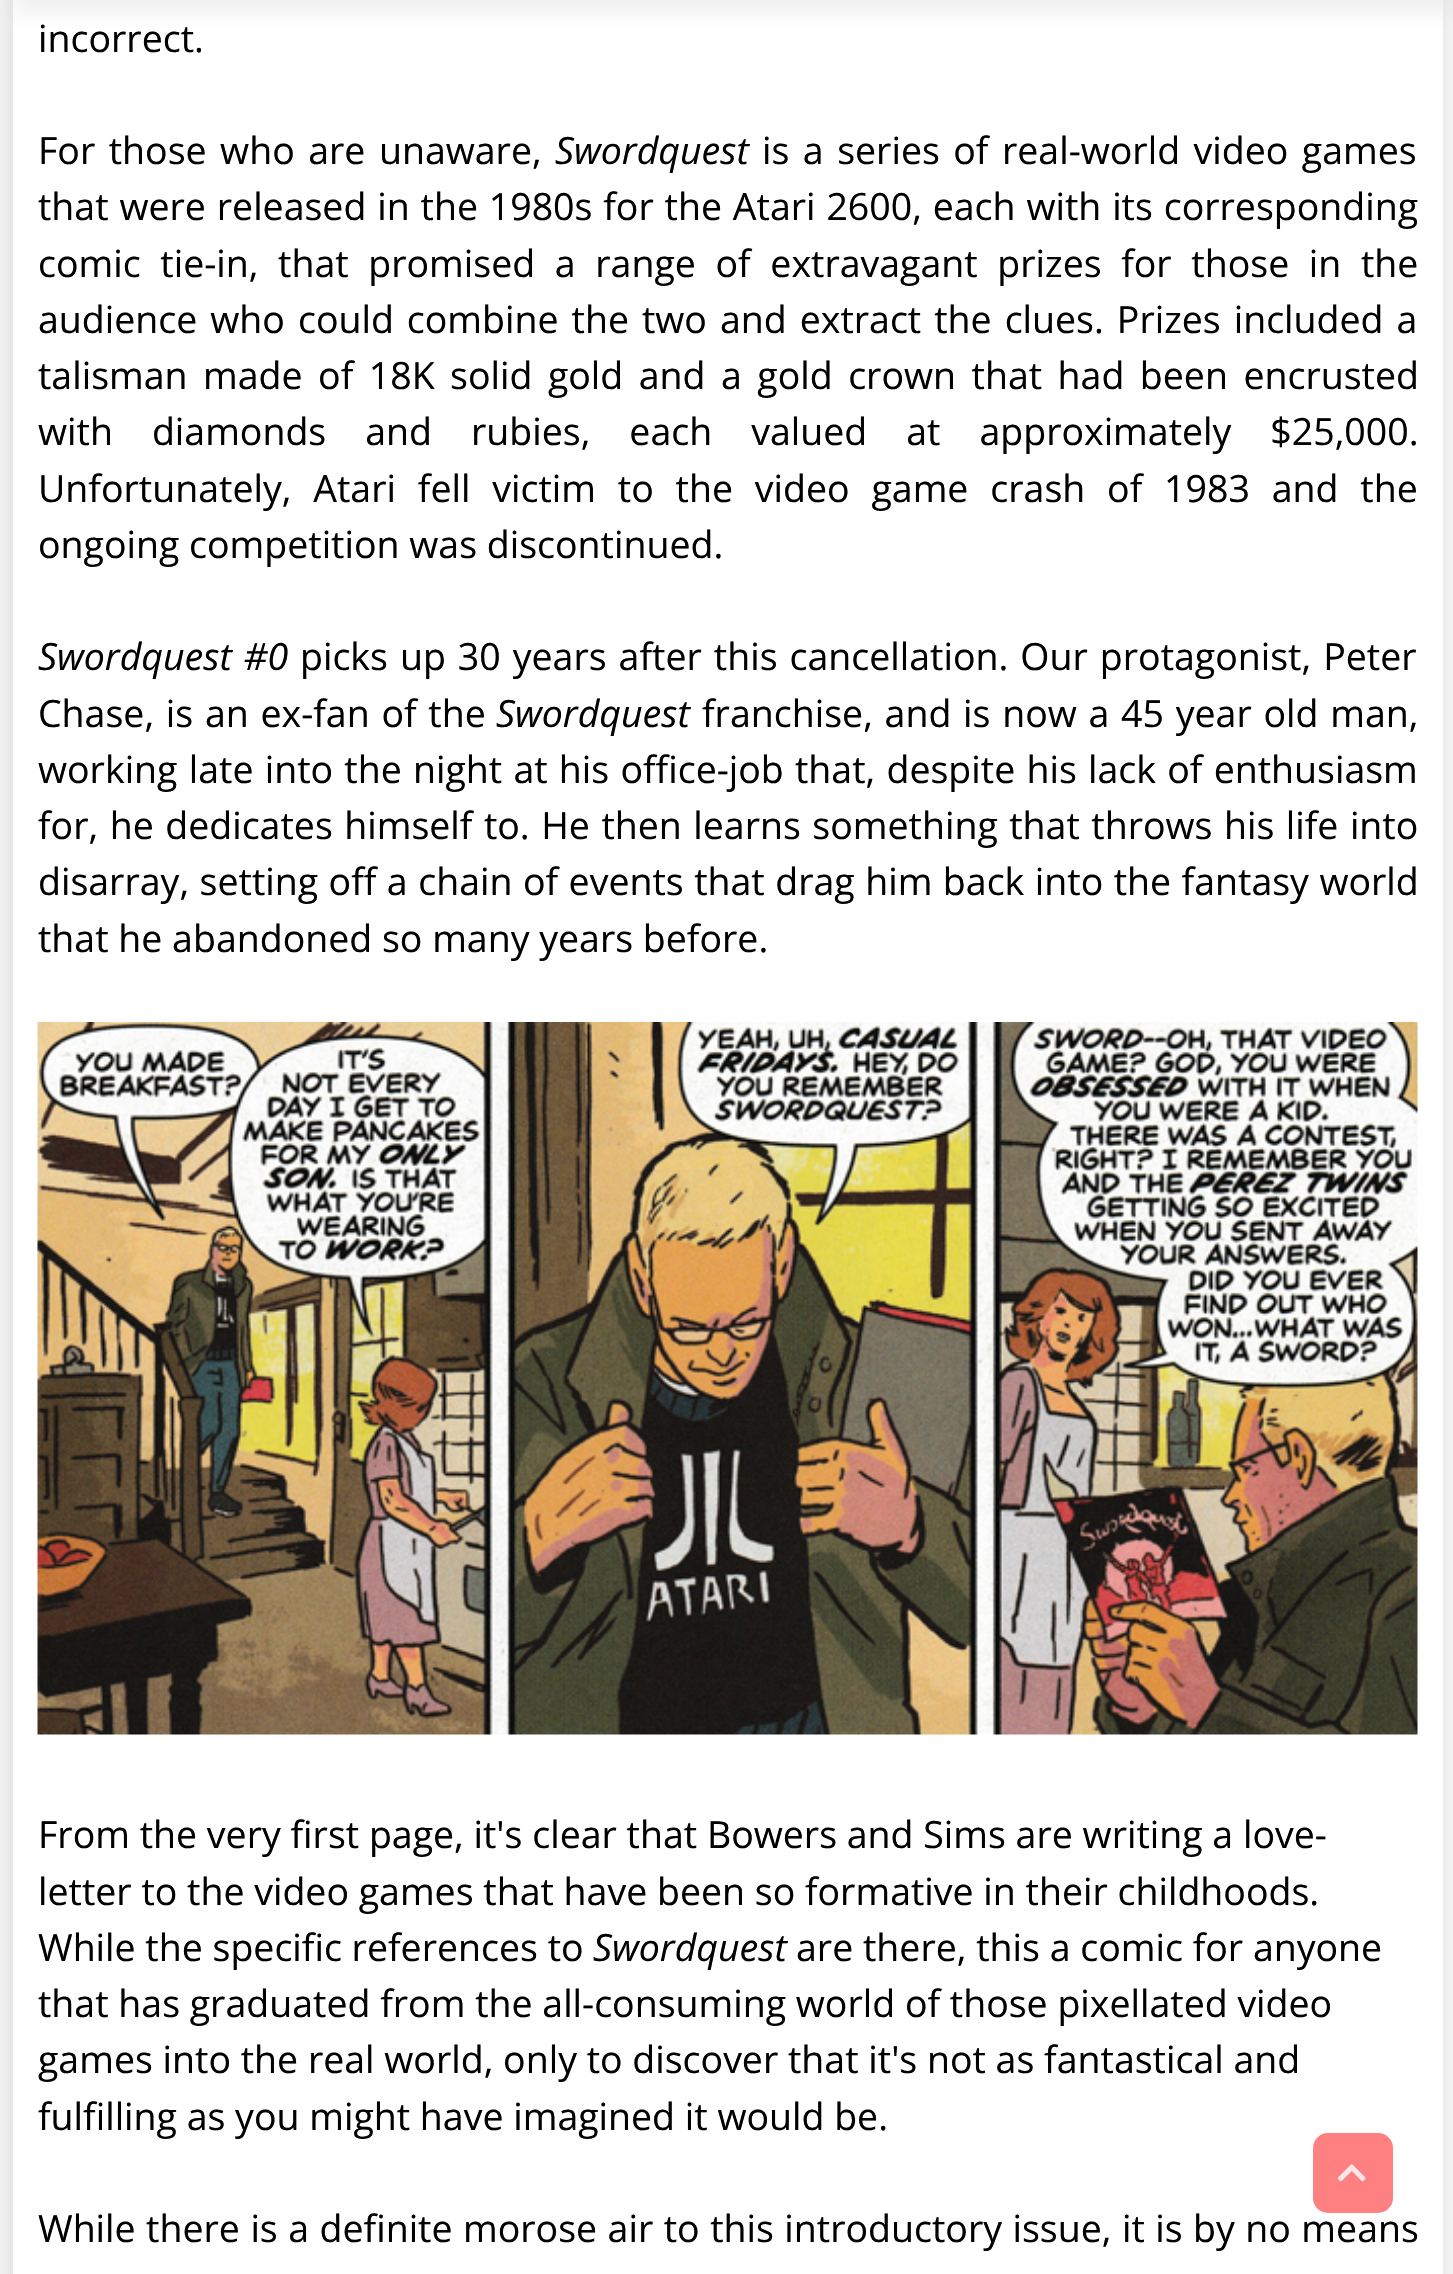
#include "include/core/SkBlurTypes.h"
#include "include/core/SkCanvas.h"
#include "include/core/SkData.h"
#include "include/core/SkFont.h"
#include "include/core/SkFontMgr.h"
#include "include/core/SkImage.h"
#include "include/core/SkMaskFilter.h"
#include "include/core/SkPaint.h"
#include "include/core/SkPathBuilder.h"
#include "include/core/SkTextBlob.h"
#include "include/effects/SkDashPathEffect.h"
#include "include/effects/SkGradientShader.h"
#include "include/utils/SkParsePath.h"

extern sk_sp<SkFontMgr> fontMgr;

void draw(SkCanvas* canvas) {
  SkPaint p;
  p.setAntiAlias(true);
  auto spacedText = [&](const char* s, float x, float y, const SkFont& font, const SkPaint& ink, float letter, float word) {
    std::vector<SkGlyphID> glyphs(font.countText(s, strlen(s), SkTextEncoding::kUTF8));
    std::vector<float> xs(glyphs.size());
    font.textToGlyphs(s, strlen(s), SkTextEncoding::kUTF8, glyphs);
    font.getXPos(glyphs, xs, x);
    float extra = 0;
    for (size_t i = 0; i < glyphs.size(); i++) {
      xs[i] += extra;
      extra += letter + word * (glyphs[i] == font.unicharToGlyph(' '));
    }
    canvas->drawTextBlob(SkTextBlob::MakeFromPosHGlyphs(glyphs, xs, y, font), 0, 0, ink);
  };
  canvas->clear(SkColorSetRGB(246, 246, 246));
  p.setColor(SkColorSetARGB(26, 0, 0, 0));
  p.setMaskFilter(SkMaskFilter::MakeBlur(kNormal_SkBlurStyle, 10));
  canvas->drawRoundRect(SkRect::MakeLTRB(10, -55, 1440, 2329), 25, 25, p);
  p.setMaskFilter(nullptr);
  p.setColor(SK_ColorWHITE);
  canvas->drawRect(SkRect::MakeLTRB(13, 0, 1443, 2274), p);
  p.setColor(SkColorSetARGB(122, 224, 223, 223));
  p.setMaskFilter(SkMaskFilter::MakeBlur(kNormal_SkBlurStyle, 10));
  canvas->drawRect(SkRect::MakeLTRB(13, -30, 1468, 13), p);
  p.setMaskFilter(nullptr);
  canvas->drawImageRect(SkImages::DeferredFromEncodedData(SkData::MakeFromFileName("images/1.png")), SkRect::MakeLTRB(37, 1022, 1418, 1735), SkSamplingOptions());
  p.setColor(SkColorSetRGB(255, 128, 128));
  canvas->drawRoundRect(SkRect::MakeLTRB(1313, 2133, 1393, 2213), 15, 15, p);
  canvas->drawImageRect(SkImages::DeferredFromEncodedData(SkData::MakeFromFileName("images/2.png")), SkRect::MakeLTRB(1337, 2164, 1366, 2182), SkSamplingOptions());
  SkFont font1(fontMgr->matchFamilyStyle("Open Sans", SkFontStyle::Normal()), 37.5f);
  font1.setSubpixel(true);
  p.setColor(SK_ColorBLACK);
  canvas->drawString("incorrect.", 38, 52, font1, p);
  spacedText("For those who are unaware,", 38, 164, font1, p, 0, 3.75f);
  SkFont font2(fontMgr->matchFamilyStyle("Open Sans", SkFontStyle::Italic()), 37.5f);
  font2.setSubpixel(true);
  canvas->drawString("Swordquest", 555, 164, font2, p);
  spacedText("is a series of real-world video games", 762, 164, font1, p, 0, 3.75f);
  spacedText("that were released in the 1980s for the Atari 2600, each with its corresponding", 38, 220, font1, p, 0, 1.1f);
  spacedText("comic tie-in, that promised a range of extravagant prizes for those in the", 38, 277, font1, p, 0, 9.9f);
  spacedText("audience who could combine the two and extract the clues. Prizes included a", 38, 333, font1, p, 0, 3.25f);
  spacedText("talisman made of 18K solid gold and a gold crown that had been encrusted", 38, 389, font1, p, 0, 5.75f);
  spacedText("with diamonds and rubies, each valued at approximately $25,000.", 38, 445, font1, p, 0, 29.25f);
  spacedText("Unfortunately, Atari fell victim to the video game crash of 1983 and the", 38, 502, font1, p, 0, 12.1f);
  canvas->drawString("ongoing competition was discontinued.", 38, 558, font1, p);
  spacedText("Swordquest #0", 38, 670, font2, p, 0, 2);
  spacedText("picks up 30 years after this cancellation. Our protagonist, Peter", 300, 670, font1, p, 0, 2.25f);
  spacedText("Chase, is an ex-fan of the", 38, 727, font1, p, 0, 2);
  canvas->drawString("Swordquest", 496, 727, font2, p);
  spacedText("franchise, and is now a 45 year old man,", 702, 727, font1, p, 0, 2);
  spacedText("working late into the night at his office-job that, despite his lack of enthusiasm", 38, 783, font1, p, 0, 1.5f);
  spacedText("for, he dedicates himself to. He then learns something that throws his life into", 38, 839, font1, p, 0, 1.75f);
  spacedText("disarray, setting off a chain of events that drag him back into the fantasy world", 38, 895, font1, p, 0, 0.75f);
  canvas->drawString("that he abandoned so many years before.", 38, 952, font1, p);
  canvas->drawString("From the very first page, it's clear that Bowers and Sims are writing a love-", 38, 1848, font1, p);
  canvas->drawString("letter to the video games that have been so formative in their childhoods.", 38, 1905, font1, p);
  canvas->drawString("While the specific references to", 38, 1961, font1, p);
  canvas->drawString("Swordquest", 593, 1961, font2, p);
  canvas->drawString("are there, this a comic for anyone", 796, 1961, font1, p);
  canvas->drawString("that has graduated from the all-consuming world of those pixellated video", 38, 2017, font1, p);
  canvas->drawString("games into the real world, only to discover that it's not as fantastical and", 38, 2073, font1, p);
  canvas->drawString("fulfilling as you might have imagined it would be.", 38, 2130, font1, p);
  spacedText("While there is a definite morose air to this introductory issue, it is by no means", 38, 2242, font1, p, 0, 0.75f);
}
